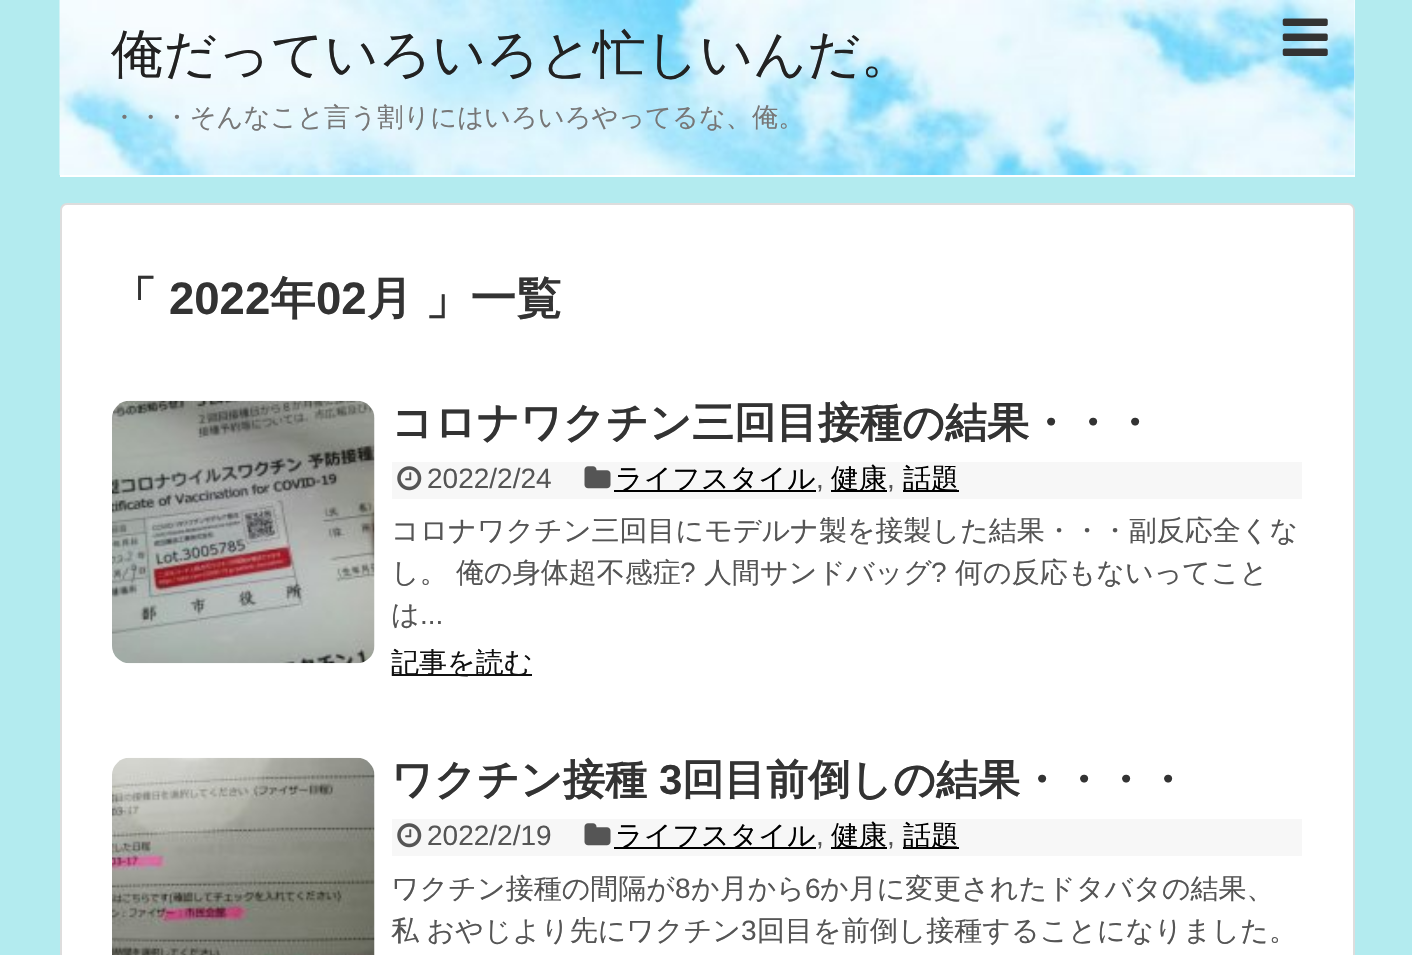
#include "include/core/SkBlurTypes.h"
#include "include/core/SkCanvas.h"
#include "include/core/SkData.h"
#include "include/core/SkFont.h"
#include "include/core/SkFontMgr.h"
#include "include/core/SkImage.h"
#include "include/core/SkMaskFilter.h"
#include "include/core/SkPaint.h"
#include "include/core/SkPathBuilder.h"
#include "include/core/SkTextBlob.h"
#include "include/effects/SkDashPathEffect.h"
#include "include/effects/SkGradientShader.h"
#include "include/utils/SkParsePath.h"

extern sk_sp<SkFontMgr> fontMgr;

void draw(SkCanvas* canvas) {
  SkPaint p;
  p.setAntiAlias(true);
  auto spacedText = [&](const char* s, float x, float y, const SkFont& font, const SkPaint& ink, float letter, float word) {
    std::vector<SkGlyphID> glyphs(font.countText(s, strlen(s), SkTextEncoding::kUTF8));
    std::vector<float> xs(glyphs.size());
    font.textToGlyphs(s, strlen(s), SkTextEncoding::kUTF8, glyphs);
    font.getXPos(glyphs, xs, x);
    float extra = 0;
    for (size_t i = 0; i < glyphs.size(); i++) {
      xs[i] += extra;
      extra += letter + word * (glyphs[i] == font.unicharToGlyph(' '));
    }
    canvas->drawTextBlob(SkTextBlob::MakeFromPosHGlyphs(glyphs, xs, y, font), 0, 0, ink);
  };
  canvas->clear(SkColorSetRGB(179, 235, 239));
  p.setColor(SK_ColorWHITE);
  canvas->drawRect(SkRect::MakeLTRB(60, 0, 1355, 177), p);
  canvas->drawImageRect(SkImages::DeferredFromEncodedData(SkData::MakeFromFileName("images/1.png")), SkRect::MakeLTRB(59, 0, 1355, 175), SkSamplingOptions());
  canvas->drawImageRect(SkImages::DeferredFromEncodedData(SkData::MakeFromFileName("images/2.png")), SkRect::MakeLTRB(1282, 18, 1328, 56), SkSamplingOptions());
  canvas->drawRoundRect(SkRect::MakeLTRB(61, 204, 1354, 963), 6, 6, p);
  p.setStyle(SkPaint::kStroke_Style);
  p.setStrokeWidth(2);
  p.setColor(SkColorSetRGB(221, 221, 221));
  canvas->drawRoundRect(SkRect::MakeLTRB(61, 204, 1354, 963), 6, 6, p);
  canvas->drawImageRect(SkImages::DeferredFromEncodedData(SkData::MakeFromFileName("images/3.png")), SkRect::MakeLTRB(112, 400, 375, 664), SkSamplingOptions());
  p.setStyle(SkPaint::kFill_Style);
  p.setColor(SkColorSetRGB(247, 247, 247));
  canvas->drawRect(SkRect::MakeLTRB(392, 462, 1302, 499), p);
  canvas->drawImageRect(SkImages::DeferredFromEncodedData(SkData::MakeFromFileName("images/4.png")), SkRect::MakeLTRB(397, 466, 422, 491), SkSamplingOptions());
  canvas->drawImageRect(SkImages::DeferredFromEncodedData(SkData::MakeFromFileName("images/5.png")), SkRect::MakeLTRB(584, 466, 611, 489), SkSamplingOptions());
  p.setColor(SK_ColorBLACK);
  canvas->drawRect(SkRect::MakeLTRB(614, 490, 816, 492), p);
  canvas->drawRect(SkRect::MakeLTRB(831, 490, 887, 492), p);
  canvas->drawRect(SkRect::MakeLTRB(903, 490, 959, 492), p);
  p.setColor(SkColorSetRGB(17, 17, 17));
  canvas->drawRect(SkRect::MakeLTRB(392, 674, 532, 676), p);
  canvas->drawImageRect(SkImages::DeferredFromEncodedData(SkData::MakeFromFileName("images/6.png")), SkRect::MakeLTRB(112, 757, 375, 955), SkSamplingOptions());
  p.setColor(SkColorSetRGB(247, 247, 247));
  canvas->drawRect(SkRect::MakeLTRB(392, 819, 1302, 856), p);
  canvas->drawImageRect(SkImages::DeferredFromEncodedData(SkData::MakeFromFileName("images/4.png")), SkRect::MakeLTRB(397, 823, 422, 848), SkSamplingOptions());
  canvas->drawImageRect(SkImages::DeferredFromEncodedData(SkData::MakeFromFileName("images/5.png")), SkRect::MakeLTRB(584, 823, 611, 846), SkSamplingOptions());
  p.setColor(SK_ColorBLACK);
  canvas->drawRect(SkRect::MakeLTRB(614, 847, 816, 849), p);
  canvas->drawRect(SkRect::MakeLTRB(831, 847, 887, 849), p);
  canvas->drawRect(SkRect::MakeLTRB(903, 847, 959, 849), p);
  SkFont font1(fontMgr->matchFamilyStyle("WenQuanYi Zen Hei", SkFontStyle(500, SkFontStyle::kNormal_Width, SkFontStyle::kUpright_Slant)), 52.5f);
  font1.setSubpixel(true);
  p.setColor(SkColorSetRGB(34, 34, 34));
  canvas->drawString("俺だっていろいろと忙しいんだ。", 111, 72, font1, p);
  SkFont font2(fontMgr->matchFamilyStyle("WenQuanYi Zen Hei", SkFontStyle(500, SkFontStyle::kNormal_Width, SkFontStyle::kUpright_Slant)), 26.25f);
  font2.setSubpixel(true);
  p.setColor(SkColorSetRGB(119, 119, 119));
  canvas->drawString("・・・そんなこと言う割りにはいろいろやってるな、俺。", 111, 126, font2, p);
  SkFont font3(fontMgr->matchFamilyStyle("WenQuanYi Zen Hei", SkFontStyle::Bold()), 45.5f);
  font3.setSubpixel(true);
  p.setColor(SkColorSetRGB(51, 51, 51));
  canvas->drawString("「", 111, 314, font3, p);
  SkFont font4(fontMgr->matchFamilyStyle("Liberation Sans", SkFontStyle::Bold()), 45.5f);
  font4.setSubpixel(true);
  canvas->drawString("2022", 169, 314, font4, p);
  canvas->drawString("年", 270, 314, font3, p);
  canvas->drawString("02", 316, 314, font4, p);
  canvas->drawString("月", 367, 314, font3, p);
  canvas->drawString("」一覧", 425, 314, font3, p);
  SkFont font5(fontMgr->matchFamilyStyle("WenQuanYi Zen Hei", SkFontStyle::Bold()), 42);
  font5.setSubpixel(true);
  canvas->drawString("コロナワクチン三回目接種の結果・・・", 391, 437, font5, p);
  SkFont font6(fontMgr->matchFamilyStyle("Liberation Sans", SkFontStyle::Normal()), 28);
  font6.setSubpixel(true);
  p.setColor(SkColorSetRGB(85, 85, 85));
  canvas->drawString("2022/2/24", 427, 488, font6, p);
  SkFont font7(fontMgr->matchFamilyStyle("WenQuanYi Zen Hei", SkFontStyle(500, SkFontStyle::kNormal_Width, SkFontStyle::kUpright_Slant)), 28);
  font7.setSubpixel(true);
  p.setColor(SK_ColorBLACK);
  canvas->drawString("ライフスタイル", 615, 488, font7, p);
  p.setColor(SkColorSetRGB(85, 85, 85));
  canvas->drawString(",", 816, 488, font6, p);
  p.setColor(SK_ColorBLACK);
  canvas->drawString("健康", 831, 488, font7, p);
  p.setColor(SkColorSetRGB(85, 85, 85));
  canvas->drawString(",", 887, 488, font6, p);
  p.setColor(SK_ColorBLACK);
  canvas->drawString("話題", 903, 488, font7, p);
  p.setColor(SkColorSetRGB(85, 85, 85));
  canvas->drawString("コロナワクチン三回目にモデルナ製を接製した結果・・・副反応全くな", 391, 540, font7, p);
  canvas->drawString("し。", 391, 582, font7, p);
  canvas->drawString("俺の身体超不感症", 456, 582, font7, p);
  canvas->drawString("?", 680, 582, font6, p);
  canvas->drawString("人間サンドバッグ", 704, 582, font7, p);
  canvas->drawString("?", 931, 582, font6, p);
  canvas->drawString("何の反応もないってこと", 955, 582, font7, p);
  canvas->drawString("は", 391, 624, font7, p);
  canvas->drawString("...", 420, 624, font6, p);
  p.setColor(SkColorSetRGB(17, 17, 17));
  canvas->drawString("記事を読む", 391, 672, font7, p);
  p.setColor(SkColorSetRGB(51, 51, 51));
  canvas->drawString("ワクチン接種", 391, 794, font5, p);
  SkFont font8(fontMgr->matchFamilyStyle("Liberation Sans", SkFontStyle::Bold()), 42);
  font8.setSubpixel(true);
  canvas->drawString("3", 659, 794, font8, p);
  canvas->drawString("回目前倒しの結果・・・・", 682, 794, font5, p);
  p.setColor(SkColorSetRGB(85, 85, 85));
  canvas->drawString("2022/2/19", 427, 845, font6, p);
  p.setColor(SK_ColorBLACK);
  canvas->drawString("ライフスタイル", 615, 845, font7, p);
  p.setColor(SkColorSetRGB(85, 85, 85));
  canvas->drawString(",", 816, 845, font6, p);
  p.setColor(SK_ColorBLACK);
  canvas->drawString("健康", 831, 845, font7, p);
  p.setColor(SkColorSetRGB(85, 85, 85));
  canvas->drawString(",", 887, 845, font6, p);
  p.setColor(SK_ColorBLACK);
  canvas->drawString("話題", 903, 845, font7, p);
  p.setColor(SkColorSetRGB(85, 85, 85));
  canvas->drawString("ワクチン接種の間隔が", 391, 898, font7, p);
  canvas->drawString("8", 675, 898, font6, p);
  canvas->drawString("か月から", 691, 898, font7, p);
  canvas->drawString("6", 805, 898, font6, p);
  canvas->drawString("か月に変更されたドタバタの結果、", 820, 898, font7, p);
  spacedText("私 おやじより先にワクチン", 391, 940, font7, p, 0, -1);
  canvas->drawString("3", 741, 940, font6, p);
  canvas->drawString("回目を前倒し接種することになりました。", 757, 940, font7, p);
}
